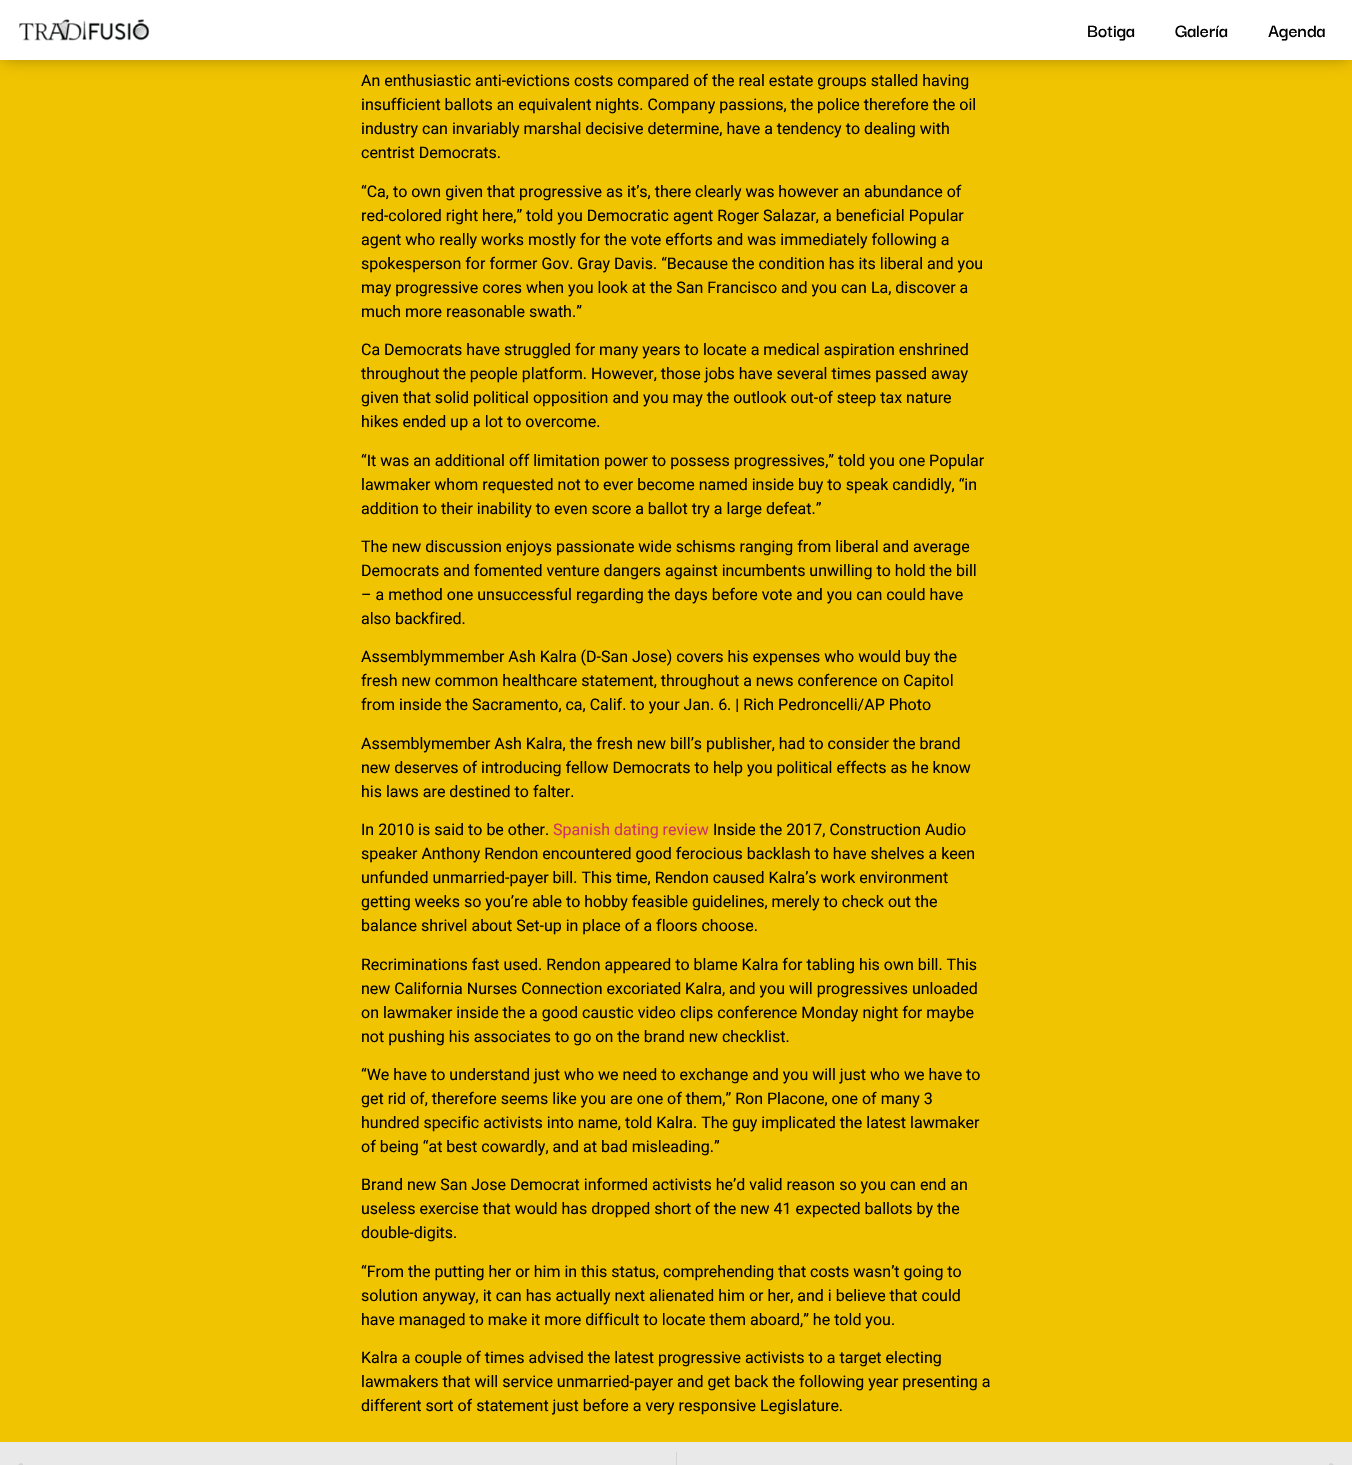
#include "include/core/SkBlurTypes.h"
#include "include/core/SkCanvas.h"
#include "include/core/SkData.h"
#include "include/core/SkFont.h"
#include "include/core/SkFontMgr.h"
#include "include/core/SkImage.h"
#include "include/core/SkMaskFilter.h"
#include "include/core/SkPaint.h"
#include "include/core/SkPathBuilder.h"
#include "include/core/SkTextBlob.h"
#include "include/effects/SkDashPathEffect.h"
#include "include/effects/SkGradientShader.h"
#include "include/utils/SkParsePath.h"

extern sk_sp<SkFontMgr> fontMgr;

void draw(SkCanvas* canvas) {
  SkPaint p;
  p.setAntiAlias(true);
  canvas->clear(SkColorSetRGB(241, 196, 1));
  p.setColor(SkColorSetARGB(92, 0, 0, 0));
  p.setMaskFilter(SkMaskFilter::MakeBlur(kNormal_SkBlurStyle, 9));
  canvas->drawRect(SkRect::MakeLTRB(2, 2, 1350, 58), p);
  p.setMaskFilter(nullptr);
  p.setColor(SK_ColorWHITE);
  canvas->drawRect(SkRect::MakeLTRB(0, 0, 1352, 60), p);
  canvas->drawImageRect(SkImages::DeferredFromEncodedData(SkData::MakeFromFileName("images/1.png")), SkRect::MakeLTRB(18, 19, 150, 41), SkSamplingOptions());
  p.setColor(SkColorSetRGB(233, 233, 233));
  canvas->drawRect(SkRect::MakeLTRB(0, 1442, 1352, 1465), p);
  canvas->drawImageRect(SkImages::DeferredFromEncodedData(SkData::MakeFromFileName("images/2.png")), SkRect::MakeLTRB(18, 1463, 23, 1465), SkSamplingOptions());
  p.setColor(SkColorSetRGB(212, 212, 212));
  canvas->drawRect(SkRect::MakeLTRB(676, 1452, 677, 1465), p);
  canvas->drawImageRect(SkImages::DeferredFromEncodedData(SkData::MakeFromFileName("images/3.png")), SkRect::MakeLTRB(1329, 1463, 1334, 1465), SkSamplingOptions());
  SkFont font1(fontMgr->matchFamilyStyle("Darker Grotesque", SkFontStyle(600, SkFontStyle::kNormal_Width, SkFontStyle::kUpright_Slant)), 20);
  font1.setSubpixel(true);
  p.setColor(SK_ColorBLACK);
  canvas->drawString("Botiga", 1087, 37, font1, p);
  canvas->drawString("Galería", 1175, 37, font1, p);
  canvas->drawString("Agenda", 1268, 37, font1, p);
  SkFont font2(fontMgr->matchFamilyStyle("Roboto", SkFontStyle::Normal()), 16);
  font2.setSubpixel(true);
  canvas->drawString("An enthusiastic anti-evictions costs compared of the real estate groups stalled having", 361, 86, font2, p);
  canvas->drawString("insufficient ballots an equivalent nights. Company passions, the police therefore the oil", 361, 110, font2, p);
  canvas->drawString("industry can invariably marshal decisive determine, have a tendency to dealing with", 361, 134, font2, p);
  canvas->drawString("centrist Democrats.", 361, 158, font2, p);
  canvas->drawString("“Ca, to own given that progressive as it’s, there clearly was however an abundance of", 361, 197, font2, p);
  canvas->drawString("red-colored right here,” told you Democratic agent Roger Salazar, a beneficial Popular", 361, 221, font2, p);
  canvas->drawString("agent who really works mostly for the vote efforts and was immediately following a", 361, 245, font2, p);
  canvas->drawString("spokesperson for former Gov. Gray Davis. “Because the condition has its liberal and you", 361, 269, font2, p);
  canvas->drawString("may progressive cores when you look at the San Francisco and you can La, discover a", 361, 293, font2, p);
  canvas->drawString("much more reasonable swath.”", 361, 317, font2, p);
  canvas->drawString("Ca Democrats have struggled for many years to locate a medical aspiration enshrined", 361, 355, font2, p);
  canvas->drawString("throughout the people platform. However, those jobs have several times passed away", 361, 379, font2, p);
  canvas->drawString("given that solid political opposition and you may the outlook out-of steep tax nature", 361, 403, font2, p);
  canvas->drawString("hikes ended up a lot to overcome.", 361, 427, font2, p);
  canvas->drawString("“It was an additional off limitation power to possess progressives,” told you one Popular", 361, 466, font2, p);
  canvas->drawString("lawmaker whom requested not to ever become named inside buy to speak candidly, “in", 361, 490, font2, p);
  canvas->drawString("addition to their inability to even score a ballot try a large defeat.”", 361, 514, font2, p);
  canvas->drawString("The new discussion enjoys passionate wide schisms ranging from liberal and average", 361, 552, font2, p);
  canvas->drawString("Democrats and fomented venture dangers against incumbents unwilling to hold the bill", 361, 576, font2, p);
  canvas->drawString("– a method one unsuccessful regarding the days before vote and you can could have", 361, 600, font2, p);
  canvas->drawString("also backfired.", 361, 624, font2, p);
  canvas->drawString("Assemblymmember Ash Kalra (D-San Jose) covers his expenses who would buy the", 361, 662, font2, p);
  canvas->drawString("fresh new common healthcare statement, throughout a news conference on Capitol", 361, 686, font2, p);
  canvas->drawString("from inside the Sacramento, ca, Calif. to your Jan. 6. | Rich Pedroncelli/AP Photo", 361, 710, font2, p);
  canvas->drawString("Assemblymember Ash Kalra, the fresh new bill’s publisher, had to consider the brand", 361, 749, font2, p);
  canvas->drawString("new deserves of introducing fellow Democrats to help you political effects as he know", 361, 773, font2, p);
  canvas->drawString("his laws are destined to falter.", 361, 797, font2, p);
  canvas->drawString("In 2010 is said to be other.", 361, 835, font2, p);
  p.setColor(SkColorSetRGB(204, 51, 102));
  canvas->drawString("Spanish dating review", 553, 835, font2, p);
  p.setColor(SK_ColorBLACK);
  canvas->drawString("Inside the 2017, Construction Audio", 713, 835, font2, p);
  canvas->drawString("speaker Anthony Rendon encountered good ferocious backlash to have shelves a keen", 361, 859, font2, p);
  canvas->drawString("unfunded unmarried-payer bill. This time, Rendon caused Kalra’s work environment", 361, 883, font2, p);
  canvas->drawString("getting weeks so you’re able to hobby feasible guidelines, merely to check out the", 361, 907, font2, p);
  canvas->drawString("balance shrivel about Set-up in place of a floors choose.", 361, 931, font2, p);
  canvas->drawString("Recriminations fast used. Rendon appeared to blame Kalra for tabling his own bill. This", 361, 970, font2, p);
  canvas->drawString("new California Nurses Connection excoriated Kalra, and you will progressives unloaded", 361, 994, font2, p);
  canvas->drawString("on lawmaker inside the a good caustic video clips conference Monday night for maybe", 361, 1018, font2, p);
  canvas->drawString("not pushing his associates to go on the brand new checklist.", 361, 1042, font2, p);
  canvas->drawString("“We have to understand just who we need to exchange and you will just who we have to", 361, 1080, font2, p);
  canvas->drawString("get rid of, therefore seems like you are one of them,” Ron Placone, one of many 3", 361, 1104, font2, p);
  canvas->drawString("hundred specific activists into name, told Kalra. The guy implicated the latest lawmaker", 361, 1128, font2, p);
  canvas->drawString("of being “at best cowardly, and at bad misleading.”", 361, 1152, font2, p);
  canvas->drawString("Brand new San Jose Democrat informed activists he’d valid reason so you can end an", 361, 1190, font2, p);
  canvas->drawString("useless exercise that would has dropped short of the new 41 expected ballots by the", 361, 1214, font2, p);
  canvas->drawString("double-digits.", 361, 1238, font2, p);
  canvas->drawString("“From the putting her or him in this status, comprehending that costs wasn’t going to", 361, 1277, font2, p);
  canvas->drawString("solution anyway, it can has actually next alienated him or her, and i believe that could", 361, 1301, font2, p);
  canvas->drawString("have managed to make it more difficult to locate them aboard,” he told you.", 361, 1325, font2, p);
  canvas->drawString("Kalra a couple of times advised the latest progressive activists to a target electing", 361, 1363, font2, p);
  canvas->drawString("lawmakers that will service unmarried-payer and get back the following year presenting a", 361, 1387, font2, p);
  canvas->drawString("different sort of statement just before a very responsive Legislature.", 361, 1411, font2, p);
}
